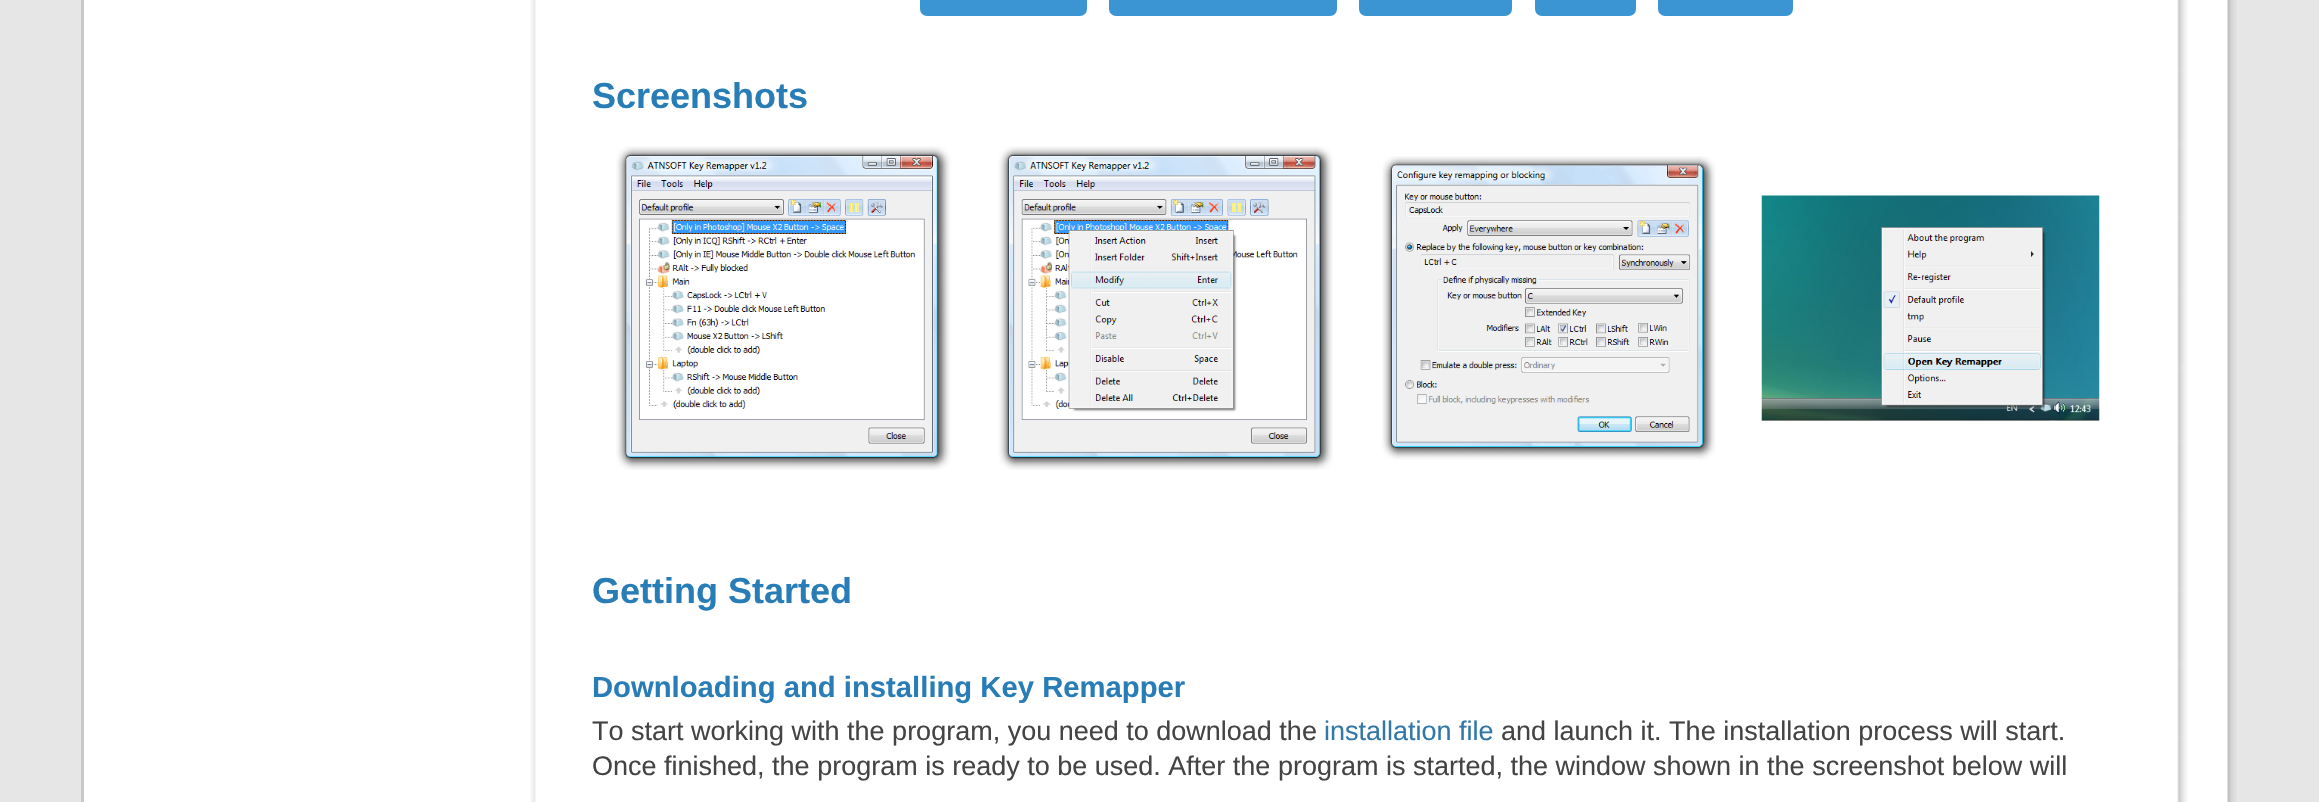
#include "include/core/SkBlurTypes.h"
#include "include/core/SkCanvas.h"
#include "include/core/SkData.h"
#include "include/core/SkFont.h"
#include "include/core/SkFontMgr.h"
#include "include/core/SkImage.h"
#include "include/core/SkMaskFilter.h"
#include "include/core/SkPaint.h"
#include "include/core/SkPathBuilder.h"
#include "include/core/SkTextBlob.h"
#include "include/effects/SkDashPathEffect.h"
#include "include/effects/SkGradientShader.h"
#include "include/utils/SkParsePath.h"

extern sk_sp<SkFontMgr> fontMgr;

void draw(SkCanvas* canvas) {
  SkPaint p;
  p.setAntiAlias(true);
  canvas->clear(SkColorSetRGB(230, 230, 230));
  p.setColor(SK_ColorWHITE);
  canvas->drawRect(SkRect::MakeLTRB(84, 0, 2239, 802), p);
  p.setColor(SkColorSetRGB(201, 201, 201));
  canvas->drawRect(SkRect::MakeLTRB(81, 0, 84, 802), p);
  canvas->drawImageRect(SkImages::DeferredFromEncodedData(SkData::MakeFromFileName("images/1.png")), SkRect::MakeLTRB(530, 0, 536, 802), SkSamplingOptions());
  p.setColor(SkColorSetRGB(60, 149, 211));
  canvas->drawRoundRect(SkRect::MakeLTRB(920, -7, 1087, 16), 7, 7, p);
  canvas->drawRoundRect(SkRect::MakeLTRB(1109, -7, 1337, 16), 7, 7, p);
  canvas->drawRoundRect(SkRect::MakeLTRB(1359, -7, 1512, 16), 7, 7, p);
  canvas->drawRoundRect(SkRect::MakeLTRB(1535, -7, 1636, 16), 7, 7, p);
  canvas->drawRoundRect(SkRect::MakeLTRB(1658, -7, 1793, 16), 7, 7, p);
  canvas->drawImageRect(SkImages::DeferredFromEncodedData(SkData::MakeFromFileName("images/2.png")), SkRect::MakeLTRB(616, 146, 951, 470), SkSamplingOptions());
  canvas->drawImageRect(SkImages::DeferredFromEncodedData(SkData::MakeFromFileName("images/3.png")), SkRect::MakeLTRB(998, 146, 1333, 470), SkSamplingOptions());
  canvas->drawImageRect(SkImages::DeferredFromEncodedData(SkData::MakeFromFileName("images/4.png")), SkRect::MakeLTRB(1382, 156, 1716, 460), SkSamplingOptions());
  canvas->drawImageRect(SkImages::DeferredFromEncodedData(SkData::MakeFromFileName("images/5.png")), SkRect::MakeLTRB(1761, 195, 2100, 421), SkSamplingOptions());
  canvas->drawImageRect(SkImages::DeferredFromEncodedData(SkData::MakeFromFileName("images/6.png")), SkRect::MakeLTRB(2177, 0, 2188, 802), SkSamplingOptions());
  canvas->drawImageRect(SkImages::DeferredFromEncodedData(SkData::MakeFromFileName("images/7.png")), SkRect::MakeLTRB(2227, 0, 2239, 802), SkSamplingOptions());
  SkFont font1(fontMgr->matchFamilyStyle("Liberation Sans", SkFontStyle::Bold()), 36);
  font1.setSubpixel(true);
  p.setColor(SkColorSetRGB(40, 125, 183));
  canvas->drawString("Screenshots", 592, 108, font1, p);
  canvas->drawString("Getting Started", 592, 603, font1, p);
  SkFont font2(fontMgr->matchFamilyStyle("Liberation Sans", SkFontStyle::Bold()), 29.25f);
  font2.setSubpixel(true);
  canvas->drawString("Downloading and installing Key Remapper", 592, 697, font2, p);
  SkFont font3(fontMgr->matchFamilyStyle("Liberation Sans", SkFontStyle::Normal()), 27);
  font3.setSubpixel(true);
  p.setColor(SkColorSetRGB(68, 68, 68));
  canvas->drawString("To start working with the program, you need to download the", 592, 740, font3, p);
  p.setColor(SkColorSetRGB(49, 119, 167));
  canvas->drawString("installation file", 1324, 740, font3, p);
  p.setColor(SkColorSetRGB(68, 68, 68));
  canvas->drawString("and launch it. The installation process will start.", 1501, 740, font3, p);
  canvas->drawString("Once finished, the program is ready to be used. After the program is started, the window shown in the screenshot below will", 592, 775, font3, p);
}
